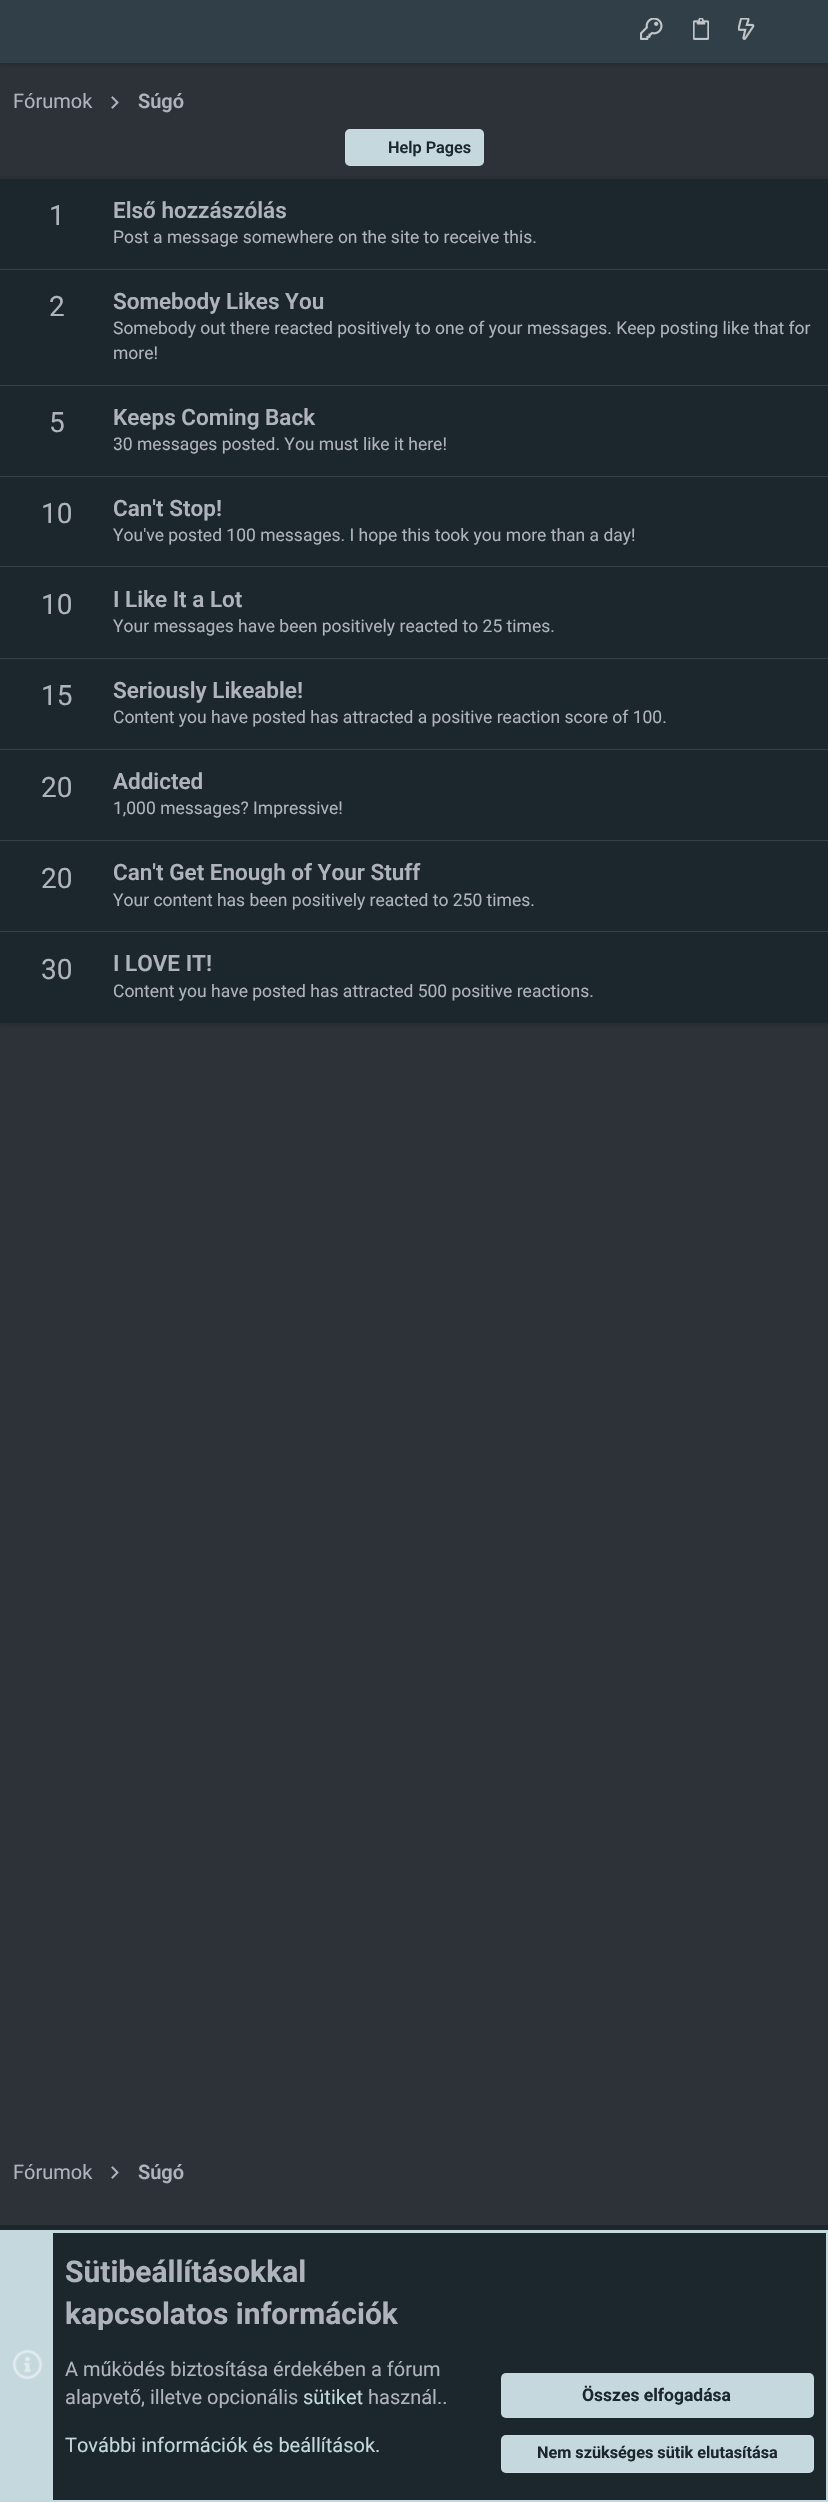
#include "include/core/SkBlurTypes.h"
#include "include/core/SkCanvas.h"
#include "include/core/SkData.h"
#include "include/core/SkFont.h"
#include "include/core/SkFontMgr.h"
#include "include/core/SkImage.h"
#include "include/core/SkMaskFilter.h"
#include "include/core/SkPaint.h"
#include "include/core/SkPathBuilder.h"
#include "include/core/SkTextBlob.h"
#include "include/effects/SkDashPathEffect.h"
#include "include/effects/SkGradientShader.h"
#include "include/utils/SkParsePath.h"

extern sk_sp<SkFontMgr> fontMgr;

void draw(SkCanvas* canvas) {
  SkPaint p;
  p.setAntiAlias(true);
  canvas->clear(SkColorSetRGB(45, 50, 56));
  p.setColor(SkColorSetARGB(51, 0, 0, 0));
  p.setMaskFilter(SkMaskFilter::MakeBlur(kNormal_SkBlurStyle, 3));
  canvas->drawRect(SkRect::MakeLTRB(0, 1, 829, 64), p);
  p.setMaskFilter(nullptr);
  p.setColor(SkColorSetRGB(49, 63, 72));
  canvas->drawRect(SkRect::MakeLTRB(0, 0, 828, 63), p);
  canvas->drawImageRect(SkImages::DeferredFromEncodedData(SkData::MakeFromFileName("images/1.png")), SkRect::MakeLTRB(640, 18, 663, 40), SkSamplingOptions());
  canvas->drawImageRect(SkImages::DeferredFromEncodedData(SkData::MakeFromFileName("images/2.png")), SkRect::MakeLTRB(693, 18, 709, 40), SkSamplingOptions());
  canvas->drawImageRect(SkImages::DeferredFromEncodedData(SkData::MakeFromFileName("images/3.png")), SkRect::MakeLTRB(738, 18, 755, 40), SkSamplingOptions());
  canvas->drawImageRect(SkImages::DeferredFromEncodedData(SkData::MakeFromFileName("images/4.png")), SkRect::MakeLTRB(111, 96, 119, 109), SkSamplingOptions());
  p.setColor(SkColorSetRGB(196, 216, 221));
  canvas->drawRoundRect(SkRect::MakeLTRB(345, 129, 484, 166), 5, 5, p);
  p.setStyle(SkPaint::kStroke_Style);
  p.setStrokeWidth(1);
  p.setColor(SkColorSetARGB(31, 255, 255, 255));
  canvas->drawRoundRect(SkRect::MakeLTRB(345.5f, 129.5f, 483.5f, 165.5f), 4.5f, 4.5f, p);
  p.setStyle(SkPaint::kFill_Style);
  p.setColor(SkColorSetARGB(51, 0, 0, 0));
  p.setMaskFilter(SkMaskFilter::MakeBlur(kNormal_SkBlurStyle, 3));
  canvas->drawRect(SkRect::MakeLTRB(0, 180, 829, 1024), p);
  p.setMaskFilter(nullptr);
  p.setColor(SkColorSetRGB(28, 38, 45));
  canvas->drawRect(SkRect::MakeLTRB(0, 179, 828, 1023), p);
  p.setColor(SkColorSetRGB(55, 64, 70));
  canvas->drawRect(SkRect::MakeLTRB(0, 269, 828, 270), p);
  canvas->drawRect(SkRect::MakeLTRB(0, 385, 828, 386), p);
  canvas->drawRect(SkRect::MakeLTRB(0, 476, 828, 477), p);
  canvas->drawRect(SkRect::MakeLTRB(0, 566, 828, 567), p);
  canvas->drawRect(SkRect::MakeLTRB(0, 658, 828, 659), p);
  canvas->drawRect(SkRect::MakeLTRB(0, 749, 828, 750), p);
  canvas->drawRect(SkRect::MakeLTRB(0, 840, 828, 841), p);
  canvas->drawRect(SkRect::MakeLTRB(0, 931, 828, 932), p);
  canvas->drawImageRect(SkImages::DeferredFromEncodedData(SkData::MakeFromFileName("images/4.png")), SkRect::MakeLTRB(111, 2166, 119, 2179), SkSamplingOptions());
  p.setColor(SkColorSetRGB(28, 38, 45));
  canvas->drawRect(SkRect::MakeLTRB(0, 2225, 828, 2230), p);
  canvas->drawRect(SkRect::MakeLTRB(53, 2233, 826, 2500), p);
  p.setStyle(SkPaint::kStroke_Style);
  p.setStrokeWidth(3);
  p.setColor(SkColorSetRGB(196, 216, 221));
  canvas->drawRect(SkRect::MakeLTRB(1.5f, 2231.5f, 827.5f, 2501.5f), p);
  p.setStyle(SkPaint::kFill_Style);
  canvas->drawRect(SkRect::MakeLTRB(3, 2233, 53, 2500), p);
  canvas->drawImageRect(SkImages::DeferredFromEncodedData(SkData::MakeFromFileName("images/5.png")), SkRect::MakeLTRB(12, 2349, 43, 2380), SkSamplingOptions());
  canvas->drawRoundRect(SkRect::MakeLTRB(501, 2373, 814, 2418), 5, 5, p);
  canvas->drawRoundRect(SkRect::MakeLTRB(501, 2435, 814, 2473), 5, 5, p);
  p.setStyle(SkPaint::kStroke_Style);
  p.setStrokeWidth(1);
  p.setColor(SkColorSetARGB(31, 255, 255, 255));
  canvas->drawRoundRect(SkRect::MakeLTRB(501.5f, 2435.5f, 813.5f, 2472.5f), 4.5f, 4.5f, p);
  SkFont font1(fontMgr->matchFamilyStyle("Roboto", SkFontStyle::Normal()), 20);
  font1.setSubpixel(true);
  p.setStyle(SkPaint::kFill_Style);
  p.setColor(SkColorSetRGB(174, 179, 188));
  canvas->drawString("Fórumok", 13, 108, font1, p);
  SkFont font2(fontMgr->matchFamilyStyle("Roboto", SkFontStyle(600, SkFontStyle::kNormal_Width, SkFontStyle::kUpright_Slant)), 20);
  font2.setSubpixel(true);
  canvas->drawString("Súgó", 138, 108, font2, p);
  SkFont font3(fontMgr->matchFamilyStyle("Roboto", SkFontStyle(600, SkFontStyle::kNormal_Width, SkFontStyle::kUpright_Slant)), 16.25f);
  font3.setSubpixel(true);
  p.setColor(SkColorSetRGB(28, 38, 45));
  canvas->drawString("Help Pages", 388, 153, font3, p);
  SkFont font4(fontMgr->matchFamilyStyle("Roboto", SkFontStyle::Normal()), 28);
  font4.setSubpixel(true);
  p.setColor(SkColorSetRGB(174, 179, 188));
  canvas->drawString("1", 49, 225, font4, p);
  SkFont font5(fontMgr->matchFamilyStyle("Roboto", SkFontStyle(600, SkFontStyle::kNormal_Width, SkFontStyle::kUpright_Slant)), 22.5f);
  font5.setSubpixel(true);
  canvas->drawString("Első hozzászólás", 113, 218, font5, p);
  SkFont font6(fontMgr->matchFamilyStyle("Roboto", SkFontStyle::Normal()), 17.5f);
  font6.setSubpixel(true);
  canvas->drawString("Post a message somewhere on the site to receive this.", 113, 243, font6, p);
  canvas->drawString("2", 49, 316, font4, p);
  canvas->drawString("Somebody Likes You", 113, 309, font5, p);
  canvas->drawString("Somebody out there reacted positively to one of your messages. Keep posting like that for", 113, 334, font6, p);
  canvas->drawString("more!", 113, 359, font6, p);
  canvas->drawString("5", 49, 432, font4, p);
  canvas->drawString("Keeps Coming Back", 113, 425, font5, p);
  canvas->drawString("30 messages posted. You must like it here!", 113, 450, font6, p);
  canvas->drawString("10", 41, 523, font4, p);
  canvas->drawString("Can't Stop!", 113, 516, font5, p);
  canvas->drawString("You've posted 100 messages. I hope this took you more than a day!", 113, 541, font6, p);
  canvas->drawString("10", 41, 614, font4, p);
  canvas->drawString("I Like It a Lot", 113, 607, font5, p);
  canvas->drawString("Your messages have been positively reacted to 25 times.", 113, 632, font6, p);
  canvas->drawString("15", 41, 705, font4, p);
  canvas->drawString("Seriously Likeable!", 113, 698, font5, p);
  canvas->drawString("Content you have posted has attracted a positive reaction score of 100.", 113, 723, font6, p);
  canvas->drawString("20", 41, 797, font4, p);
  canvas->drawString("Addicted", 113, 789, font5, p);
  canvas->drawString("1,000 messages? Impressive!", 113, 814, font6, p);
  canvas->drawString("20", 41, 888, font4, p);
  canvas->drawString("Can't Get Enough of Your Stuff", 113, 880, font5, p);
  canvas->drawString("Your content has been positively reacted to 250 times.", 113, 906, font6, p);
  canvas->drawString("30", 41, 979, font4, p);
  canvas->drawString("I LOVE IT!", 113, 971, font5, p);
  canvas->drawString("Content you have posted has attracted 500 positive reactions.", 113, 997, font6, p);
  canvas->drawString("Fórumok", 13, 2179, font1, p);
  canvas->drawString("Súgó", 138, 2179, font2, p);
  SkFont font7(fontMgr->matchFamilyStyle("Roboto", SkFontStyle::Bold()), 30);
  font7.setSubpixel(true);
  canvas->drawString("Sütibeállításokkal", 65, 2282, font7, p);
  canvas->drawString("kapcsolatos információk", 65, 2324, font7, p);
  canvas->drawString("A működés biztosítása érdekében a fórum", 65, 2376, font1, p);
  canvas->drawString("alapvető, illetve opcionális", 65, 2404, font1, p);
  p.setColor(SkColorSetRGB(196, 216, 221));
  canvas->drawString("sütiket", 303, 2404, font1, p);
  p.setColor(SkColorSetRGB(174, 179, 188));
  canvas->drawString("használ..", 368, 2404, font1, p);
  p.setColor(SkColorSetRGB(196, 216, 221));
  canvas->drawString("További információk és beállítások.", 65, 2452, font1, p);
  SkFont font8(fontMgr->matchFamilyStyle("Roboto", SkFontStyle::Bold()), 17.5f);
  font8.setSubpixel(true);
  p.setColor(SkColorSetRGB(28, 38, 45));
  canvas->drawString("Összes elfogadása", 582, 2401, font8, p);
  SkFont font9(fontMgr->matchFamilyStyle("Roboto", SkFontStyle::Bold()), 16.25f);
  font9.setSubpixel(true);
  canvas->drawString("Nem szükséges sütik elutasítása", 537, 2458, font9, p);
}
